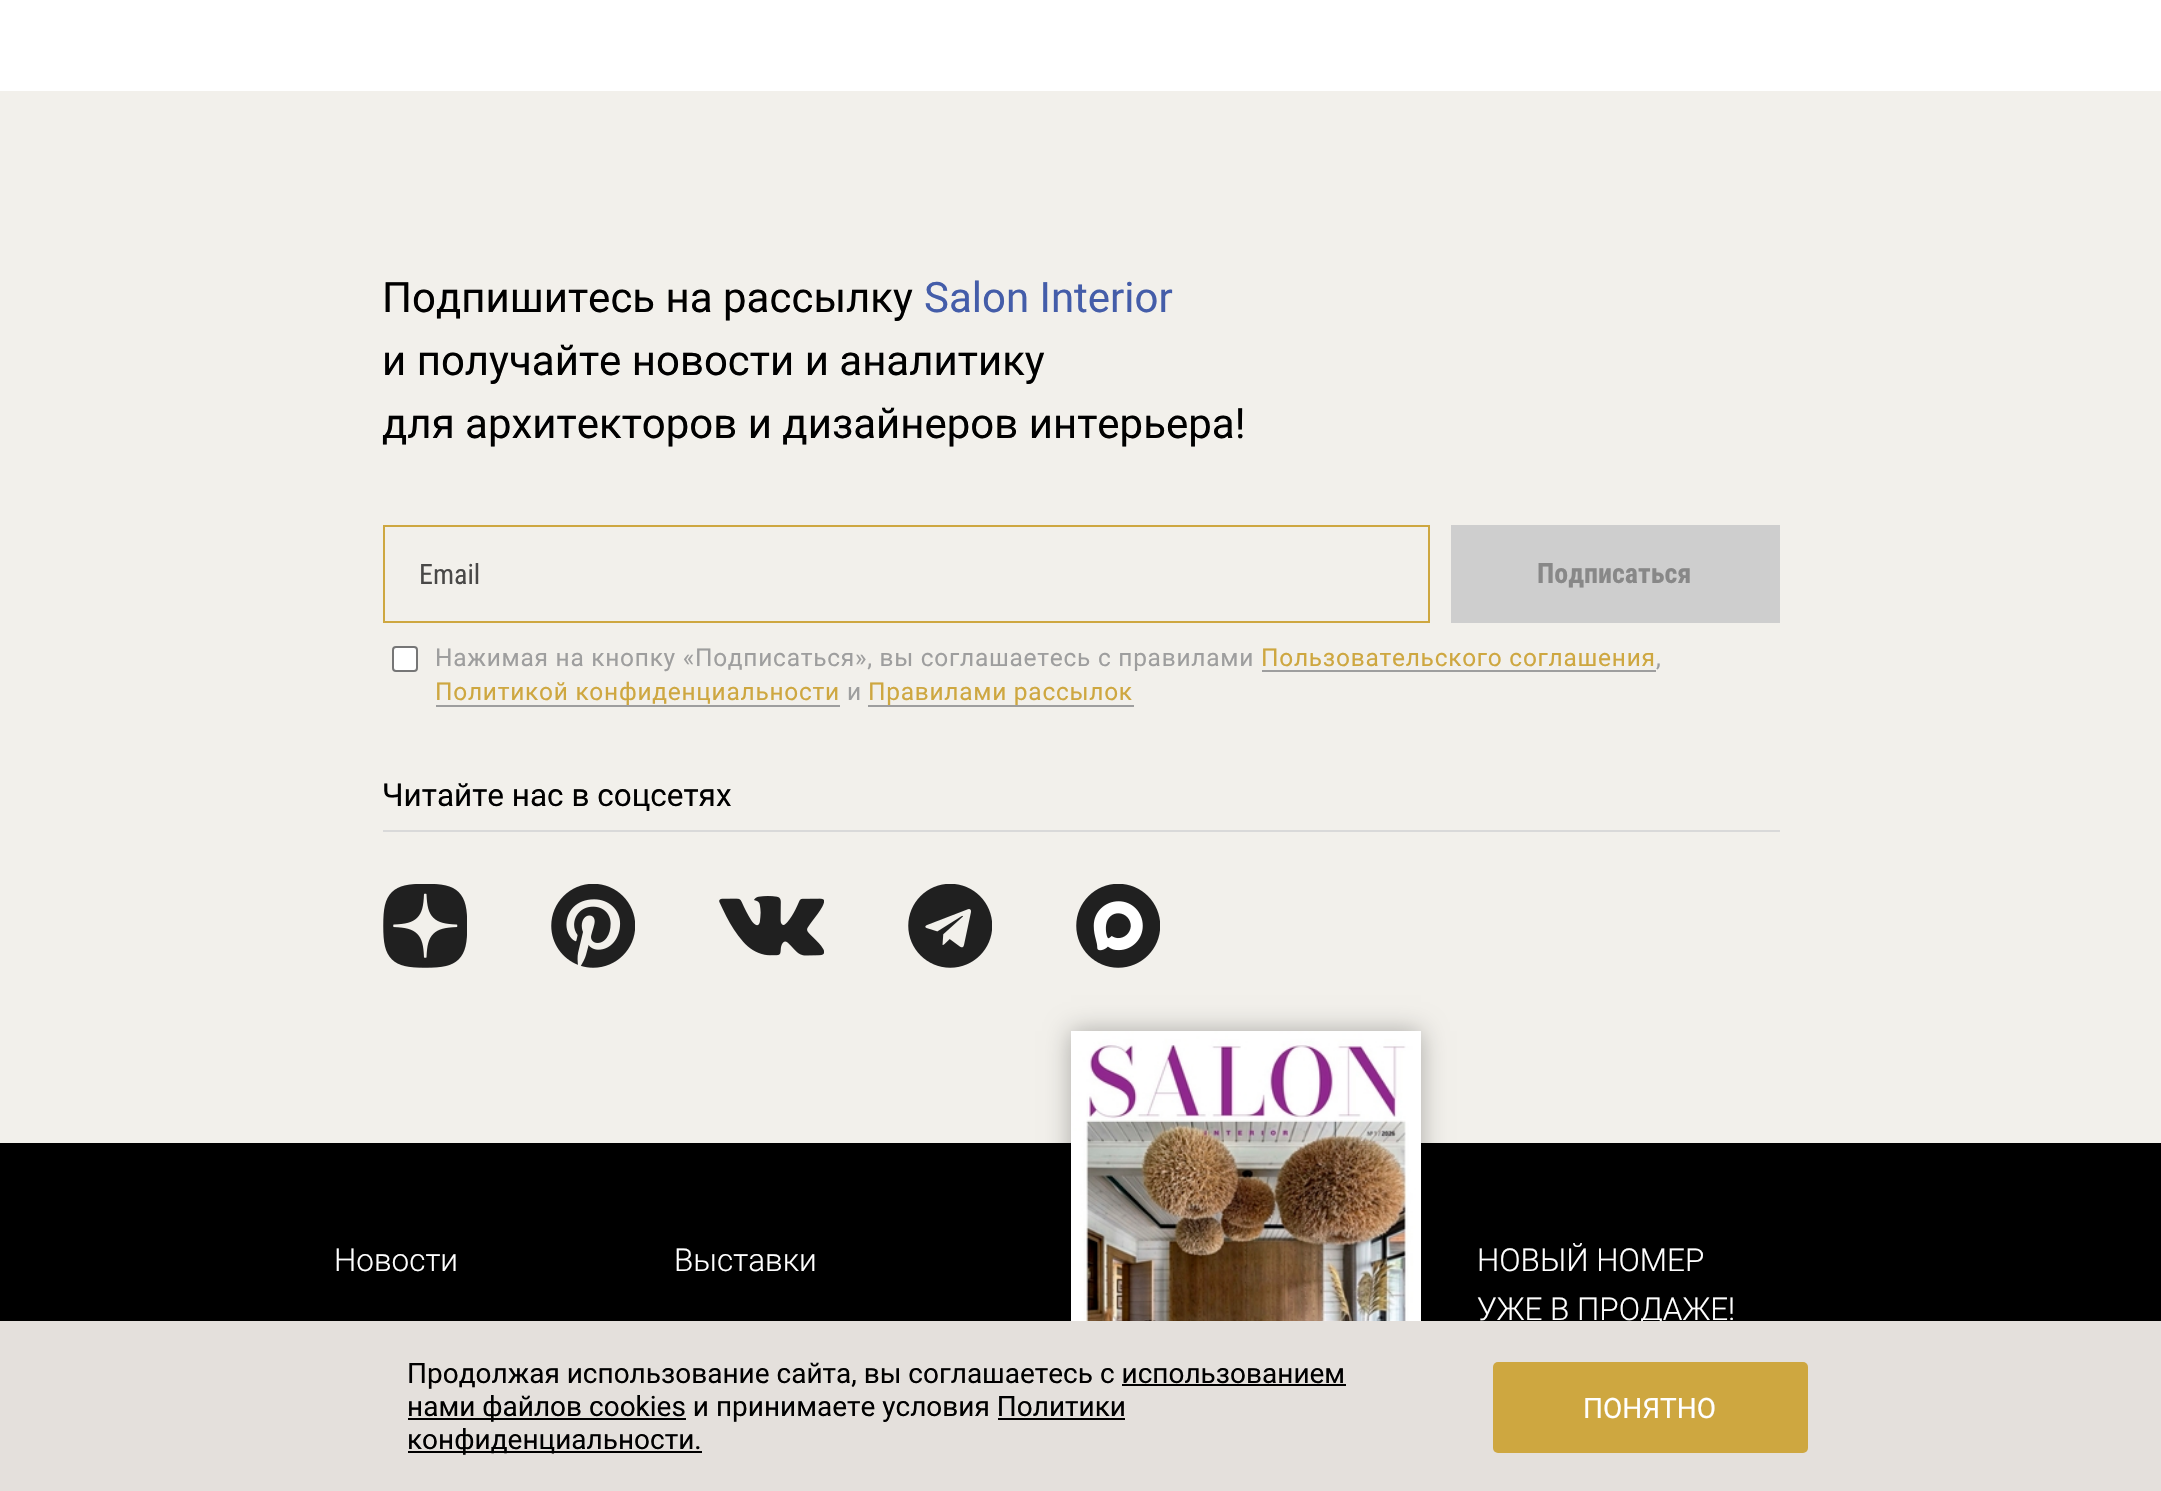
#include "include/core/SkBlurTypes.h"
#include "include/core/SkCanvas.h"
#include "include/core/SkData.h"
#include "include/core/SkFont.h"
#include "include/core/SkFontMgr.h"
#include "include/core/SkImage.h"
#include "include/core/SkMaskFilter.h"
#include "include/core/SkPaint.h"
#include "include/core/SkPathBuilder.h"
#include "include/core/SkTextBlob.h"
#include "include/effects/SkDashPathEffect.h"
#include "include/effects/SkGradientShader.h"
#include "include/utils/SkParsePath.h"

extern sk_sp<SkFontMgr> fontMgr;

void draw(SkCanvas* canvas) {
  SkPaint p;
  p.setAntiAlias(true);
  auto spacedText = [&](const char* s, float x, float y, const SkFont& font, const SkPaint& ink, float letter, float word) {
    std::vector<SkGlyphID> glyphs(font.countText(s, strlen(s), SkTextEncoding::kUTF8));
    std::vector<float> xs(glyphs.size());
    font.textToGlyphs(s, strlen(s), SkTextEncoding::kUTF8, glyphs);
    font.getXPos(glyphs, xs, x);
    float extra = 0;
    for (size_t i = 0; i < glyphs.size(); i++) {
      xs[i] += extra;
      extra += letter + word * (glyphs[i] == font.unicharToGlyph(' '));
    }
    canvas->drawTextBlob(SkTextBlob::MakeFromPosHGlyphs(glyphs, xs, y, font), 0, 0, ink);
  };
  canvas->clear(SK_ColorWHITE);
  p.setColor(SkColorSetRGB(242, 240, 235));
  canvas->drawRect(SkRect::MakeLTRB(0, 91, 2161, 1143), p);
  p.setStyle(SkPaint::kStroke_Style);
  p.setStrokeWidth(2);
  p.setColor(SkColorSetRGB(206, 167, 64));
  canvas->drawRect(SkRect::MakeLTRB(384, 526, 1429, 622), p);
  p.setStyle(SkPaint::kFill_Style);
  p.setColor(SkColorSetRGB(206, 206, 206));
  canvas->drawRect(SkRect::MakeLTRB(1451, 525, 1780, 623), p);
  p.setColor(SK_ColorWHITE);
  canvas->drawRoundRect(SkRect::MakeLTRB(393, 647, 417, 671), 3, 3, p);
  p.setStyle(SkPaint::kStroke_Style);
  p.setColor(SkColorSetRGB(118, 118, 118));
  canvas->drawRoundRect(SkRect::MakeLTRB(393, 647, 417, 671), 3, 3, p);
  p.setStyle(SkPaint::kFill_Style);
  p.setColor(SkColorSetRGB(158, 158, 158));
  canvas->drawRect(SkRect::MakeLTRB(1262, 670, 1656, 672), p);
  canvas->drawRect(SkRect::MakeLTRB(436, 705, 840, 707), p);
  canvas->drawRect(SkRect::MakeLTRB(868, 705, 1134, 707), p);
  p.setColor(SkColorSetRGB(217, 217, 217));
  canvas->drawRect(SkRect::MakeLTRB(383, 830, 1780, 832), p);
  canvas->drawImageRect(SkImages::DeferredFromEncodedData(SkData::MakeFromFileName("images/1.png")), SkRect::MakeLTRB(383, 884, 467, 968), SkSamplingOptions());
  canvas->drawImageRect(SkImages::DeferredFromEncodedData(SkData::MakeFromFileName("images/2.png")), SkRect::MakeLTRB(551, 884, 635, 968), SkSamplingOptions());
  canvas->drawImageRect(SkImages::DeferredFromEncodedData(SkData::MakeFromFileName("images/3.png")), SkRect::MakeLTRB(719, 896, 824, 956), SkSamplingOptions());
  canvas->drawImageRect(SkImages::DeferredFromEncodedData(SkData::MakeFromFileName("images/4.png")), SkRect::MakeLTRB(908, 884, 992, 968), SkSamplingOptions());
  canvas->drawImageRect(SkImages::DeferredFromEncodedData(SkData::MakeFromFileName("images/5.png")), SkRect::MakeLTRB(1076, 884, 1160, 968), SkSamplingOptions());
  p.setColor(SK_ColorBLACK);
  canvas->drawRect(SkRect::MakeLTRB(0, 1143, 2161, 1321), p);
  p.setColor(SkColorSetARGB(77, 0, 0, 0));
  p.setMaskFilter(SkMaskFilter::MakeBlur(kNormal_SkBlurStyle, 12));
  canvas->drawRect(SkRect::MakeLTRB(1071, 1031, 1421, 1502), p);
  p.setMaskFilter(nullptr);
  canvas->drawImageRect(SkImages::DeferredFromEncodedData(SkData::MakeFromFileName("images/6.png")), SkRect::MakeLTRB(1071, 1031, 1421, 1321), SkSamplingOptions());
  SkFont font1(fontMgr->matchFamilyStyle("Roboto", SkFontStyle::Normal()), 42);
  font1.setSubpixel(true);
  p.setColor(SK_ColorBLACK);
  canvas->drawString("Подпишитесь на рассылку", 382, 312, font1, p);
  p.setColor(SkColorSetRGB(68, 93, 169));
  canvas->drawString("Salon Interior", 924, 312, font1, p);
  p.setColor(SK_ColorBLACK);
  canvas->drawString("и получайте новости и аналитику", 382, 375, font1, p);
  canvas->drawString("для архитекторов и дизайнеров интерьера!", 382, 438, font1, p);
  SkFont font2(fontMgr->matchFamilyStyle("Roboto Condensed", SkFontStyle::Normal()), 28);
  font2.setSubpixel(true);
  p.setColor(SkColorSetRGB(73, 72, 71));
  canvas->drawString("Email", 419, 584, font2, p);
  SkFont font3(fontMgr->matchFamilyStyle("Roboto Condensed", SkFontStyle::Bold()), 28);
  font3.setSubpixel(true);
  p.setColor(SkColorSetRGB(136, 136, 136));
  canvas->drawString("Подписаться", 1537, 583, font3, p);
  SkFont font4(fontMgr->matchFamilyStyle("Roboto", SkFontStyle::Normal()), 24.5f);
  font4.setSubpixel(true);
  p.setColor(SkColorSetRGB(158, 158, 158));
  spacedText("Нажимая на кнопку «Подписаться», вы соглашаетеcь с правилами", 435, 666, font4, p, 0.73f, 0);
  p.setColor(SkColorSetRGB(206, 167, 64));
  spacedText("Пользовательского соглашения", 1261, 666, font4, p, 0.73f, 0);
  p.setColor(SkColorSetRGB(158, 158, 158));
  spacedText(",", 1656, 666, font4, p, 0.73f, 0);
  p.setColor(SkColorSetRGB(206, 167, 64));
  spacedText("Политикой конфиденциальности", 435, 700, font4, p, 0.73f, 0);
  p.setColor(SkColorSetRGB(158, 158, 158));
  spacedText("и", 847, 700, font4, p, 0.73f, 0);
  p.setColor(SkColorSetRGB(206, 167, 64));
  spacedText("Правилами рассылок", 868, 700, font4, p, 0.73f, 0);
  SkFont font5(fontMgr->matchFamilyStyle("Roboto", SkFontStyle::Normal()), 31.5f);
  font5.setSubpixel(true);
  p.setColor(SK_ColorBLACK);
  canvas->drawString("Читайте нас в соцсетях", 382, 806, font5, p);
  SkFont font6(fontMgr->matchFamilyStyle("Roboto", SkFontStyle(300, SkFontStyle::kNormal_Width, SkFontStyle::kUpright_Slant)), 31.5f);
  font6.setSubpixel(true);
  p.setColor(SK_ColorWHITE);
  canvas->drawString("Новости", 334, 1271, font6, p);
  canvas->drawString("Выставки", 674, 1271, font6, p);
  canvas->drawString("НОВЫЙ НОМЕР", 1477, 1271, font6, p);
  canvas->drawString("УЖЕ В ПРОДАЖЕ!", 1477, 1320, font6, p);
  p.setColor(SkColorSetRGB(228, 224, 220));
  canvas->drawRect(SkRect::MakeLTRB(0, 1321, 2161, 1491), p);
  SkFont font7(fontMgr->matchFamilyStyle("Roboto", SkFontStyle::Normal()), 28);
  font7.setSubpixel(true);
  p.setColor(SK_ColorBLACK);
  canvas->drawString("Продолжая использование сайта, вы соглашаетесь c использованием", 407, 1383, font7, p);
  canvas->drawRect(SkRect::MakeLTRB(1122, 1384, 1346, 1386), p);
  canvas->drawRect(SkRect::MakeLTRB(408, 1418, 686, 1420), p);
  canvas->drawString("нами файлов cookies и принимаете условия Политики", 407, 1416, font7, p);
  canvas->drawRect(SkRect::MakeLTRB(998, 1418, 1125, 1420), p);
  canvas->drawRect(SkRect::MakeLTRB(408, 1451, 702, 1453), p);
  canvas->drawString("конфиденциальности.", 407, 1449, font7, p);
  p.setColor(SkColorSetRGB(206, 167, 64));
  canvas->drawRoundRect(SkRect::MakeLTRB(1493, 1362, 1808, 1453), 5, 5, p);
  p.setColor(SK_ColorWHITE);
  canvas->drawString("ПОНЯТНО", 1583, 1418, font7, p);
}
